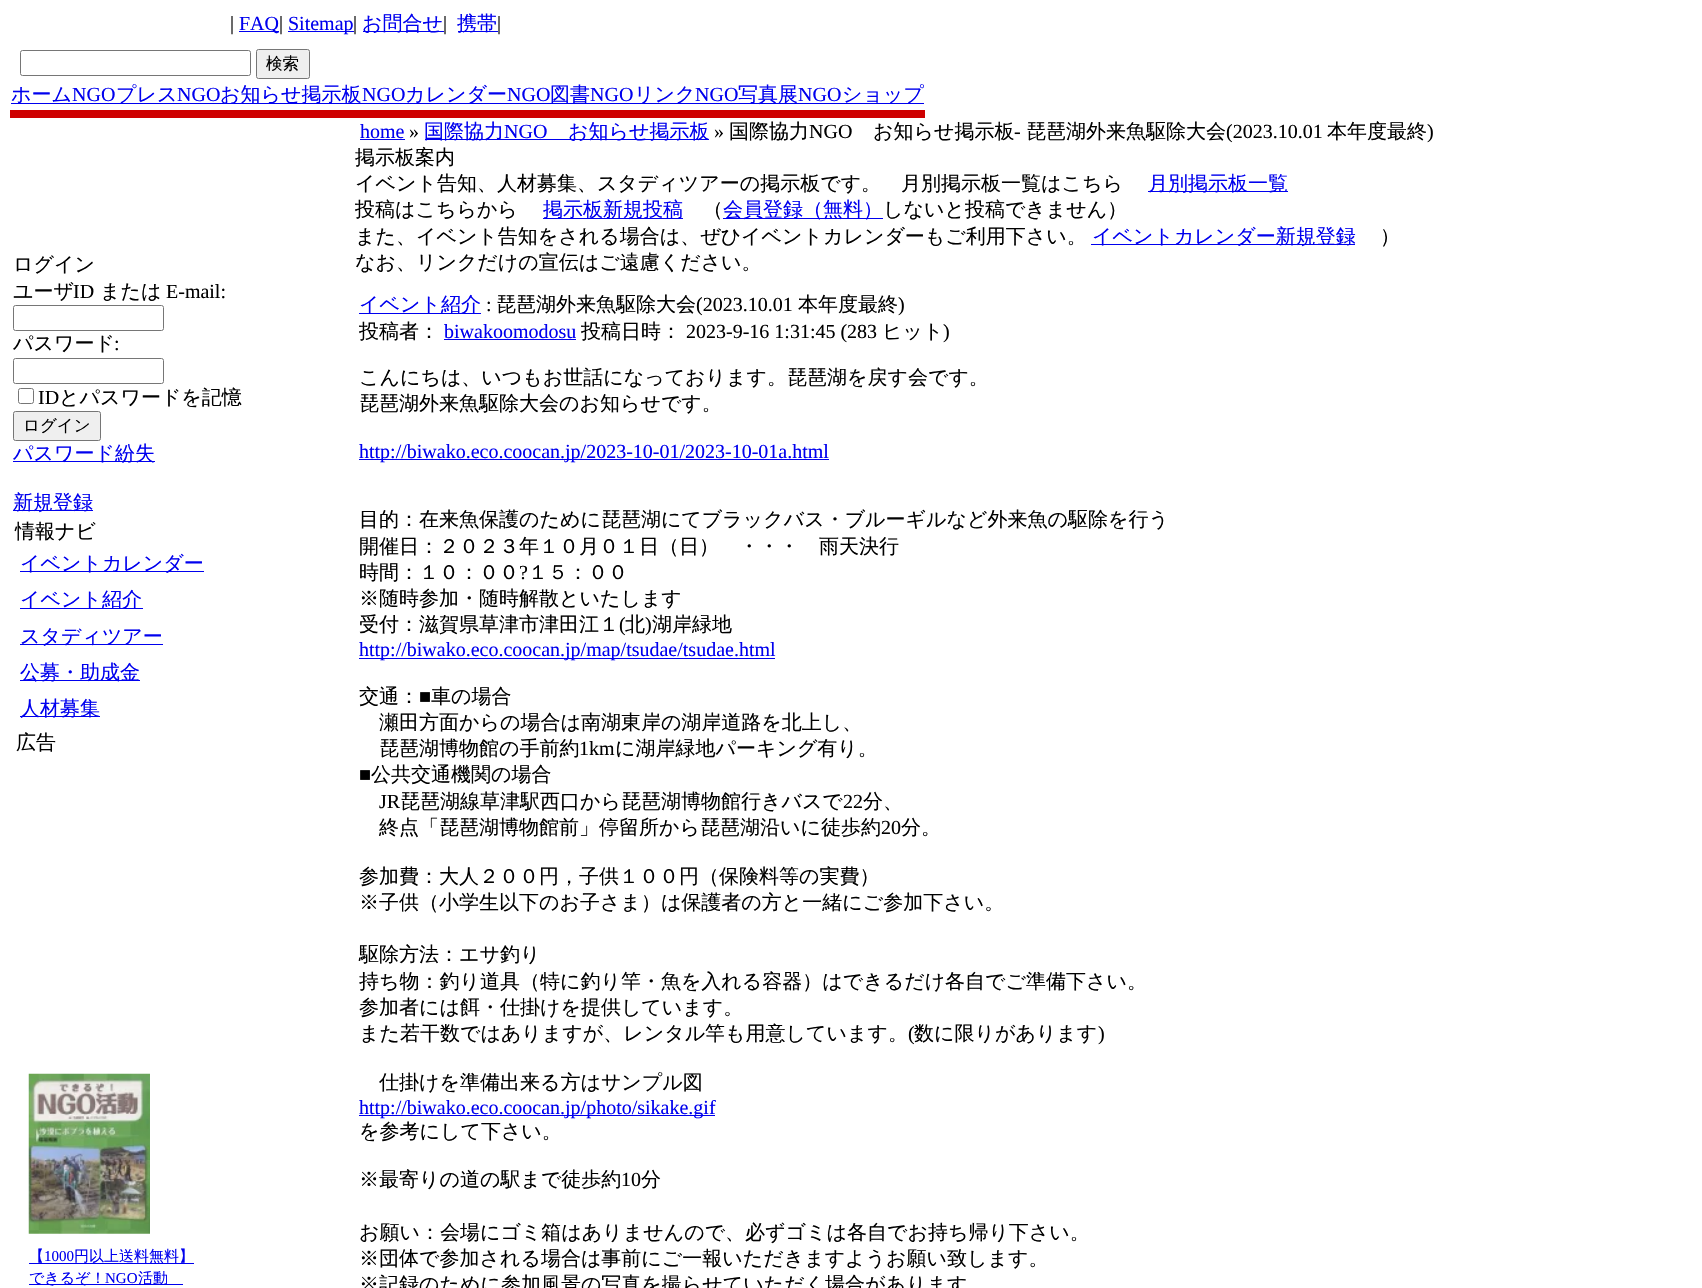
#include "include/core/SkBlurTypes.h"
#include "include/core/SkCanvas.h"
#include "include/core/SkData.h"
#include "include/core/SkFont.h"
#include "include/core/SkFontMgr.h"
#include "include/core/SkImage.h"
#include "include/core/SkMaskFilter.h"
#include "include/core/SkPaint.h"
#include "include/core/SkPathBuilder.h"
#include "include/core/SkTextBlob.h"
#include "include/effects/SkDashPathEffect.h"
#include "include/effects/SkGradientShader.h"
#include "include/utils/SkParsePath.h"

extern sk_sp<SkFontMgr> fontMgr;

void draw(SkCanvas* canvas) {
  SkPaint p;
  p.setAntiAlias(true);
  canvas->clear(SK_ColorWHITE);
  p.setColor(SkColorSetRGB(0, 0, 238));
  canvas->drawRect(SkRect::MakeLTRB(239, 31, 279, 32), p);
  canvas->drawRect(SkRect::MakeLTRB(288, 31, 354, 32), p);
  canvas->drawRect(SkRect::MakeLTRB(363, 31, 444, 32), p);
  canvas->drawRect(SkRect::MakeLTRB(458, 31, 498, 32), p);
  p.setStyle(SkPaint::kStroke_Style);
  p.setStrokeWidth(1);
  p.setColor(SkColorSetRGB(118, 118, 118));
  canvas->drawRoundRect(SkRect::MakeLTRB(20.5f, 50.5f, 250.5f, 75.5f), 2, 2, p);
  p.setStyle(SkPaint::kFill_Style);
  p.setColor(SkColorSetRGB(239, 239, 239));
  canvas->drawRoundRect(SkRect::MakeLTRB(256.5f, 49.5f, 309.5f, 78.5f), 2, 2, p);
  p.setStyle(SkPaint::kStroke_Style);
  p.setColor(SkColorSetRGB(118, 118, 118));
  canvas->drawRoundRect(SkRect::MakeLTRB(256.5f, 49.5f, 309.5f, 78.5f), 2, 2, p);
  p.setStyle(SkPaint::kFill_Style);
  p.setColor(SkColorSetRGB(0, 0, 238));
  canvas->drawRect(SkRect::MakeLTRB(11, 103, 924, 104), p);
  p.setColor(SkColorSetRGB(206, 0, 0));
  canvas->drawRect(SkRect::MakeLTRB(10, 110, 925, 118), p);
  p.setStyle(SkPaint::kStroke_Style);
  p.setColor(SkColorSetRGB(118, 118, 118));
  canvas->drawRoundRect(SkRect::MakeLTRB(13.5f, 305.5f, 163.5f, 330.5f), 2, 2, p);
  canvas->drawRoundRect(SkRect::MakeLTRB(13.5f, 358.5f, 163.5f, 383.5f), 2, 2, p);
  canvas->drawRoundRect(SkRect::MakeLTRB(18.5f, 388.5f, 33.5f, 403.5f), 2, 2, p);
  p.setStyle(SkPaint::kFill_Style);
  p.setColor(SkColorSetRGB(239, 239, 239));
  canvas->drawRoundRect(SkRect::MakeLTRB(13.5f, 411.5f, 100.5f, 440.5f), 2, 2, p);
  p.setStyle(SkPaint::kStroke_Style);
  p.setColor(SkColorSetRGB(118, 118, 118));
  canvas->drawRoundRect(SkRect::MakeLTRB(13.5f, 411.5f, 100.5f, 440.5f), 2, 2, p);
  p.setStyle(SkPaint::kFill_Style);
  p.setColor(SkColorSetRGB(0, 0, 238));
  canvas->drawRect(SkRect::MakeLTRB(13, 461, 155, 462), p);
  canvas->drawRect(SkRect::MakeLTRB(13, 510, 93, 511), p);
  canvas->drawRect(SkRect::MakeLTRB(20, 571, 204, 572), p);
  canvas->drawRect(SkRect::MakeLTRB(20, 608, 143, 609), p);
  canvas->drawRect(SkRect::MakeLTRB(20, 644, 163, 645), p);
  canvas->drawRect(SkRect::MakeLTRB(20, 680, 140, 681), p);
  canvas->drawRect(SkRect::MakeLTRB(20, 716, 100, 717), p);
  canvas->drawImageRect(SkImages::DeferredFromEncodedData(SkData::MakeFromFileName("images/1.png")), SkRect::MakeLTRB(28, 1073, 150, 1234), SkSamplingOptions());
  canvas->drawRect(SkRect::MakeLTRB(29, 1263, 194, 1264), p);
  canvas->drawRect(SkRect::MakeLTRB(29, 1284, 183, 1285), p);
  canvas->drawRect(SkRect::MakeLTRB(360, 139, 405, 140), p);
  canvas->drawRect(SkRect::MakeLTRB(425, 139, 709, 140), p);
  canvas->drawRect(SkRect::MakeLTRB(1148, 191, 1288, 192), p);
  canvas->drawRect(SkRect::MakeLTRB(543, 218, 683, 219), p);
  canvas->drawRect(SkRect::MakeLTRB(723, 218, 883, 219), p);
  canvas->drawRect(SkRect::MakeLTRB(1091, 244, 1355, 245), p);
  canvas->drawRect(SkRect::MakeLTRB(359, 313, 481, 314), p);
  canvas->drawRect(SkRect::MakeLTRB(444, 339, 576, 340), p);
  canvas->drawRect(SkRect::MakeLTRB(359, 459, 829, 460), p);
  canvas->drawRect(SkRect::MakeLTRB(359, 658, 775, 659), p);
  canvas->drawRect(SkRect::MakeLTRB(359, 1115, 715, 1116), p);
  SkFont font1(fontMgr->matchFamilyStyle("Liberation Serif", SkFontStyle::Normal()), 20);
  font1.setSubpixel(true);
  p.setColor(SK_ColorBLACK);
  canvas->drawString("|", 230, 30, font1, p);
  p.setColor(SkColorSetRGB(0, 0, 238));
  canvas->drawString("FAQ", 239, 30, font1, p);
  p.setColor(SK_ColorBLACK);
  canvas->drawString("|", 279, 30, font1, p);
  p.setColor(SkColorSetRGB(0, 0, 238));
  canvas->drawString("Sitemap", 288, 30, font1, p);
  p.setColor(SK_ColorBLACK);
  canvas->drawString("|", 353, 30, font1, p);
  SkFont font2(fontMgr->matchFamilyStyle("WenQuanYi Zen Hei", SkFontStyle(500, SkFontStyle::kNormal_Width, SkFontStyle::kUpright_Slant)), 20);
  font2.setSubpixel(true);
  p.setColor(SkColorSetRGB(0, 0, 238));
  canvas->drawString("お問合せ", 362, 30, font2, p);
  p.setColor(SK_ColorBLACK);
  canvas->drawString("|", 443, 30, font1, p);
  p.setColor(SkColorSetRGB(0, 0, 238));
  canvas->drawString("携帯", 457, 30, font2, p);
  p.setColor(SK_ColorBLACK);
  canvas->drawString("|", 497, 30, font1, p);
  SkFont font3(fontMgr->matchFamilyStyle("WenQuanYi Zen Hei", SkFontStyle(500, SkFontStyle::kNormal_Width, SkFontStyle::kUpright_Slant)), 16.5f);
  font3.setSubpixel(true);
  canvas->drawString("検索", 266, 69, font3, p);
  p.setColor(SkColorSetRGB(0, 0, 238));
  canvas->drawString("ホーム", 11, 101, font2, p);
  canvas->drawString("NGO", 72, 101, font1, p);
  canvas->drawString("プレス", 116, 101, font2, p);
  canvas->drawString("NGO", 177, 101, font1, p);
  canvas->drawString("お知らせ掲示板", 220, 101, font2, p);
  canvas->drawString("NGO", 362, 101, font1, p);
  canvas->drawString("カレンダー", 405, 101, font2, p);
  canvas->drawString("NGO", 507, 101, font1, p);
  canvas->drawString("図書", 550, 101, font2, p);
  canvas->drawString("NGO", 590, 101, font1, p);
  canvas->drawString("リンク", 634, 101, font2, p);
  canvas->drawString("NGO", 695, 101, font1, p);
  canvas->drawString("写真展", 738, 101, font2, p);
  canvas->drawString("NGO", 798, 101, font1, p);
  canvas->drawString("ショップ", 842, 101, font2, p);
  p.setColor(SK_ColorBLACK);
  canvas->drawString("ログイン", 13, 271, font2, p);
  canvas->drawString("ユーザ", 13, 298, font2, p);
  canvas->drawString("ID", 73, 298, font1, p);
  canvas->drawString("または", 100, 298, font2, p);
  canvas->drawString("E-mail:", 166, 298, font1, p);
  canvas->drawString("パスワード", 13, 350, font2, p);
  canvas->drawString(":", 114, 350, font1, p);
  canvas->drawString("ID", 38, 404, font1, p);
  canvas->drawString("とパスワードを記憶", 59, 404, font2, p);
  canvas->drawString("ログイン", 23, 431, font3, p);
  p.setColor(SkColorSetRGB(0, 0, 238));
  canvas->drawString("パスワード紛失", 13, 460, font2, p);
  canvas->drawString("新規登録", 13, 509, font2, p);
  p.setColor(SK_ColorBLACK);
  canvas->drawString("情報ナビ", 15, 538, font2, p);
  p.setColor(SkColorSetRGB(0, 0, 238));
  canvas->drawString("イベントカレンダー", 20, 570, font2, p);
  canvas->drawString("イベント紹介", 20, 606, font2, p);
  canvas->drawString("スタディツアー", 20, 643, font2, p);
  canvas->drawString("公募・助成金", 20, 679, font2, p);
  canvas->drawString("人材募集", 20, 715, font2, p);
  p.setColor(SK_ColorBLACK);
  canvas->drawString("広告", 16, 749, font2, p);
  SkFont font4(fontMgr->matchFamilyStyle("WenQuanYi Zen Hei", SkFontStyle(500, SkFontStyle::kNormal_Width, SkFontStyle::kUpright_Slant)), 15);
  font4.setSubpixel(true);
  p.setColor(SkColorSetRGB(0, 0, 238));
  canvas->drawString("【", 29, 1261, font4, p);
  SkFont font5(fontMgr->matchFamilyStyle("Liberation Serif", SkFontStyle::Normal()), 15);
  font5.setSubpixel(true);
  canvas->drawString("1000", 44, 1261, font5, p);
  canvas->drawString("円以上送料無料】", 74, 1261, font4, p);
  canvas->drawString("できるぞ！", 29, 1283, font4, p);
  canvas->drawString("NGO", 105, 1283, font5, p);
  canvas->drawString("活動", 138, 1283, font4, p);
  canvas->drawString("home", 360, 138, font1, p);
  p.setColor(SK_ColorBLACK);
  canvas->drawString("»", 409, 138, font1, p);
  p.setColor(SkColorSetRGB(0, 0, 238));
  canvas->drawString("国際協力", 424, 138, font2, p);
  canvas->drawString("NGO", 504, 138, font1, p);
  canvas->drawString("お知らせ掲示板", 568, 138, font2, p);
  p.setColor(SK_ColorBLACK);
  canvas->drawString("»", 714, 138, font1, p);
  canvas->drawString("国際協力", 729, 138, font2, p);
  canvas->drawString("NGO", 809, 138, font1, p);
  canvas->drawString("お知らせ掲示板", 873, 138, font2, p);
  canvas->drawString("-", 1014, 138, font1, p);
  canvas->drawString("琵琶湖外来魚駆除大会", 1026, 138, font2, p);
  canvas->drawString("(2023.10.01", 1226, 138, font1, p);
  canvas->drawString("本年度最終", 1327, 138, font2, p);
  canvas->drawString(")", 1427, 138, font1, p);
  canvas->drawString("掲示板案内", 355, 164, font2, p);
  canvas->drawString("イベント告知、人材募集、スタディツアーの掲示板です。　月別掲示板一覧はこちら", 355, 190, font2, p);
  p.setColor(SkColorSetRGB(0, 0, 238));
  canvas->drawString("月別掲示板一覧", 1148, 190, font2, p);
  p.setColor(SK_ColorBLACK);
  canvas->drawString("投稿はこちらから", 355, 216, font2, p);
  p.setColor(SkColorSetRGB(0, 0, 238));
  canvas->drawString("掲示板新規投稿", 543, 216, font2, p);
  p.setColor(SK_ColorBLACK);
  canvas->drawString("（", 703, 216, font2, p);
  p.setColor(SkColorSetRGB(0, 0, 238));
  canvas->drawString("会員登録（無料）", 723, 216, font2, p);
  p.setColor(SK_ColorBLACK);
  canvas->drawString("しないと投稿できません）", 883, 216, font2, p);
  canvas->drawString("また、イベント告知をされる場合は、ぜひイベントカレンダーもご利用下さい。", 355, 243, font2, p);
  p.setColor(SkColorSetRGB(0, 0, 238));
  canvas->drawString("イベントカレンダー新規登録", 1092, 243, font2, p);
  p.setColor(SK_ColorBLACK);
  canvas->drawString("）", 1380, 243, font2, p);
  canvas->drawString("なお、リンクだけの宣伝はご遠慮ください。", 355, 269, font2, p);
  p.setColor(SkColorSetRGB(0, 0, 238));
  canvas->drawString("イベント紹介", 359, 311, font2, p);
  p.setColor(SK_ColorBLACK);
  canvas->drawString(":", 486, 311, font1, p);
  canvas->drawString("琵琶湖外来魚駆除大会", 496, 311, font2, p);
  canvas->drawString("(2023.10.01", 696, 311, font1, p);
  canvas->drawString("本年度最終", 798, 311, font2, p);
  canvas->drawString(")", 898, 311, font1, p);
  canvas->drawString("投稿者：", 359, 338, font2, p);
  p.setColor(SkColorSetRGB(0, 0, 238));
  canvas->drawString("biwakoomodosu", 444, 338, font1, p);
  p.setColor(SK_ColorBLACK);
  canvas->drawString("投稿日時：", 581, 338, font2, p);
  canvas->drawString("2023-9-16 1:31:45 (283", 686, 338, font1, p);
  canvas->drawString("ヒット", 882, 338, font2, p);
  canvas->drawString(")", 943, 338, font1, p);
  canvas->drawString("こんにちは、いつもお世話になっております。琵琶湖を戻す会です。", 359, 384, font2, p);
  canvas->drawString("琵琶湖外来魚駆除大会のお知らせです。", 359, 410, font2, p);
  p.setColor(SkColorSetRGB(0, 0, 238));
  canvas->drawString("http://biwako.eco.coocan.jp/2023-10-01/2023-10-01a.html", 359, 458, font1, p);
  p.setColor(SK_ColorBLACK);
  canvas->drawString("目的：在来魚保護のために琵琶湖にてブラックバス・ブルーギルなど外来魚の駆除を行う", 359, 526, font2, p);
  canvas->drawString("開催日：２０２３年１０月０１日（日）　・・・　雨天決行", 359, 553, font2, p);
  canvas->drawString("時間：１０：００", 359, 579, font2, p);
  canvas->drawString("?", 519, 579, font1, p);
  canvas->drawString("１５：００", 528, 579, font2, p);
  canvas->drawString("※随時参加・随時解散といたします", 359, 605, font2, p);
  canvas->drawString("受付：滋賀県草津市津田江１", 359, 631, font2, p);
  canvas->drawString("(", 619, 631, font1, p);
  canvas->drawString("北", 625, 631, font2, p);
  canvas->drawString(")", 645, 631, font1, p);
  canvas->drawString("湖岸緑地", 652, 631, font2, p);
  p.setColor(SkColorSetRGB(0, 0, 238));
  canvas->drawString("http://biwako.eco.coocan.jp/map/tsudae/tsudae.html", 359, 656, font1, p);
  p.setColor(SK_ColorBLACK);
  canvas->drawString("交通：", 359, 703, font2, p);
  canvas->drawString("■", 419, 703, font1, p);
  canvas->drawString("車の場合", 431, 703, font2, p);
  canvas->drawString("瀬田方面からの場合は南湖東岸の湖岸道路を北上し、", 379, 729, font2, p);
  canvas->drawString("琵琶湖博物館の手前約", 379, 755, font2, p);
  canvas->drawString("1km", 579, 755, font1, p);
  canvas->drawString("に湖岸緑地パーキング有り。", 615, 755, font2, p);
  canvas->drawString("■", 359, 781, font1, p);
  canvas->drawString("公共交通機関の場合", 371, 781, font2, p);
  canvas->drawString("JR", 379, 808, font1, p);
  canvas->drawString("琵琶湖線草津駅西口から琵琶湖博物館行きバスで", 400, 808, font2, p);
  canvas->drawString("22", 843, 808, font1, p);
  canvas->drawString("分、", 863, 808, font2, p);
  canvas->drawString("終点「琵琶湖博物館前」停留所から琵琶湖沿いに徒歩約", 379, 834, font2, p);
  canvas->drawString("20", 881, 834, font1, p);
  canvas->drawString("分。", 901, 834, font2, p);
  canvas->drawString("参加費：大人２００円，子供１００円（保険料等の実費）", 359, 883, font2, p);
  canvas->drawString("※子供（小学生以下のお子さま）は保護者の方と一緒にご参加下さい。", 359, 909, font2, p);
  canvas->drawString("駆除方法：エサ釣り", 359, 961, font2, p);
  canvas->drawString("持ち物：釣り道具（特に釣り竿・魚を入れる容器）はできるだけ各自でご準備下さい。", 359, 988, font2, p);
  canvas->drawString("参加者には餌・仕掛けを提供しています。", 359, 1014, font2, p);
  canvas->drawString("また若干数ではありますが、レンタル竿も用意しています。", 359, 1040, font2, p);
  canvas->drawString("(", 908, 1040, font1, p);
  canvas->drawString("数に限りがあります", 914, 1040, font2, p);
  canvas->drawString(")", 1098, 1040, font1, p);
  canvas->drawString("仕掛けを準備出来る方はサンプル図", 379, 1089, font2, p);
  p.setColor(SkColorSetRGB(0, 0, 238));
  canvas->drawString("http://biwako.eco.coocan.jp/photo/sikake.gif", 359, 1114, font1, p);
  p.setColor(SK_ColorBLACK);
  canvas->drawString("を参考にして下さい。", 359, 1138, font2, p);
  canvas->drawString("※最寄りの道の駅まで徒歩約", 359, 1186, font2, p);
  canvas->drawString("10", 621, 1186, font1, p);
  canvas->drawString("分", 641, 1186, font2, p);
  canvas->drawString("お願い：会場にゴミ箱はありませんので、必ずゴミは各自でお持ち帰り下さい。", 359, 1239, font2, p);
  canvas->drawString("※団体で参加される場合は事前にご一報いただきますようお願い致します。", 359, 1265, font2, p);
  canvas->drawString("※記録のために参加風景の写真を撮らせていただく場合があります", 359, 1291, font2, p);
}
